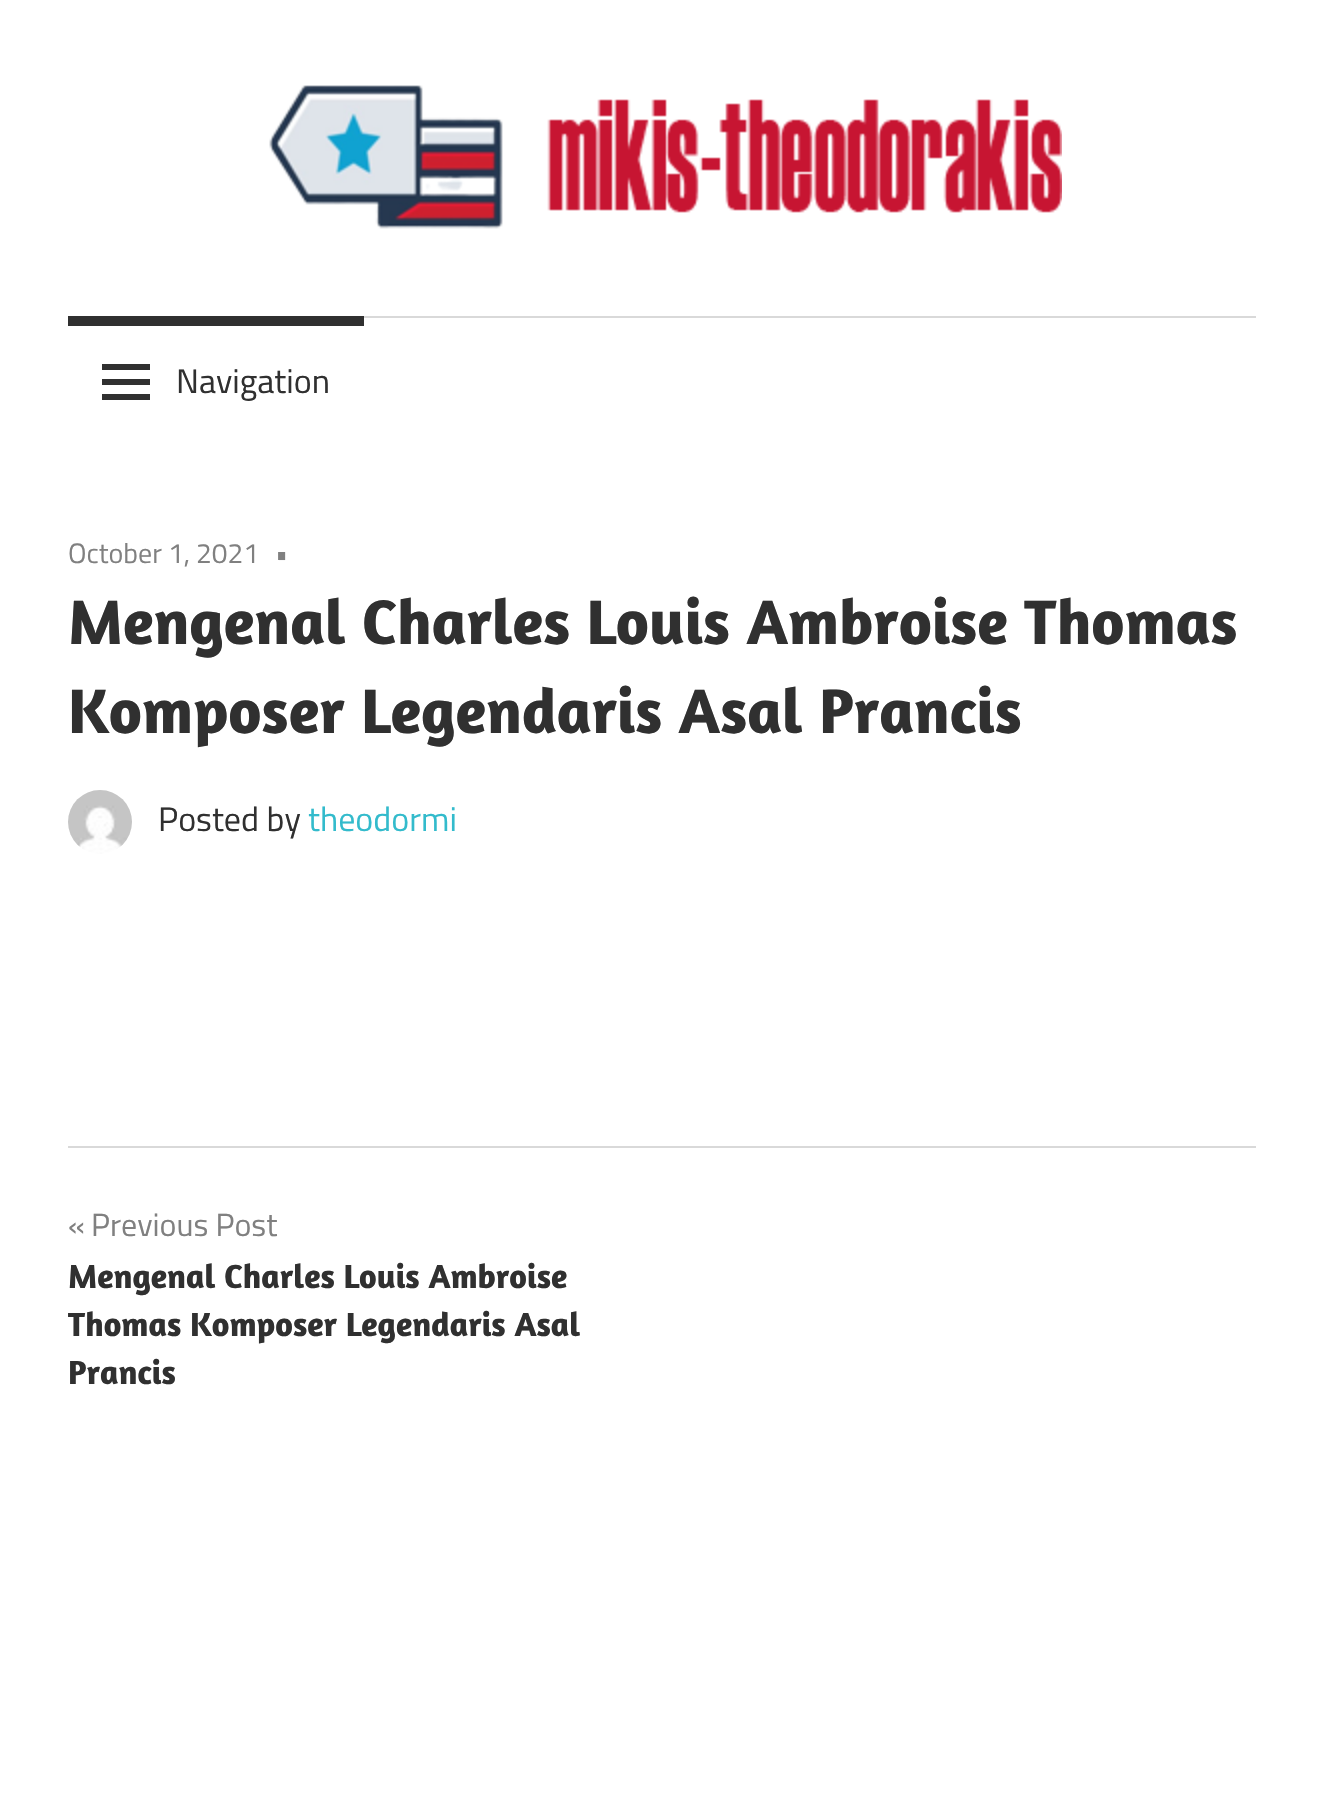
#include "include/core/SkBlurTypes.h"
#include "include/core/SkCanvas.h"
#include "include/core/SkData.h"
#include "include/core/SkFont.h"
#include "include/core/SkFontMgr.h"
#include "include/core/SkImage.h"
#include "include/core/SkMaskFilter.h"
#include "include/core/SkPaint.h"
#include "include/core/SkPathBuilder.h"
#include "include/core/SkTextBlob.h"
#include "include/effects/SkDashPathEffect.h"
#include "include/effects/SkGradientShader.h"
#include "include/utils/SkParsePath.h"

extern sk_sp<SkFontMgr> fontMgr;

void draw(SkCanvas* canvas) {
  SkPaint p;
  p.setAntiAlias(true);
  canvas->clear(SK_ColorWHITE);
  canvas->drawImageRect(SkImages::DeferredFromEncodedData(SkData::MakeFromFileName("images/1.png")), SkRect::MakeLTRB(269, 85, 1062, 229), SkSamplingOptions());
  p.setColor(SkColorSetRGB(217, 217, 217));
  canvas->drawRect(SkRect::MakeLTRB(364, 316, 1256, 318), p);
  p.setColor(SkColorSetRGB(48, 48, 48));
  canvas->drawRect(SkRect::MakeLTRB(68, 316, 364, 326), p);
  canvas->drawImageRect(SkImages::DeferredFromEncodedData(SkData::MakeFromFileName("images/2.png")), SkRect::MakeLTRB(102, 364, 150, 400), SkSamplingOptions());
  canvas->drawImageRect(SkImages::DeferredFromEncodedData(SkData::MakeFromFileName("images/3.png")), SkRect::MakeLTRB(68, 790, 132, 854), SkSamplingOptions());
  p.setColor(SkColorSetRGB(217, 217, 217));
  canvas->drawRect(SkRect::MakeLTRB(68, 1146, 1256, 1148), p);
  SkFont font1(fontMgr->matchFamilyStyle("Titillium Web", SkFontStyle::Normal()), 34);
  font1.setSubpixel(true);
  p.setColor(SkColorSetRGB(48, 48, 48));
  canvas->drawString("Navigation", 176, 393, font1, p);
  SkFont font2(fontMgr->matchFamilyStyle("Titillium Web", SkFontStyle::Normal()), 28);
  font2.setSubpixel(true);
  p.setColor(SkColorSetRGB(128, 128, 128));
  canvas->drawString("October 1, 2021", 68, 563, font2, p);
  canvas->drawString("•", 275, 563, font2, p);
  SkFont font3(fontMgr->matchFamilyStyle("Amaranth", SkFontStyle::Bold()), 64);
  font3.setSubpixel(true);
  p.setColor(SkColorSetRGB(48, 48, 48));
  canvas->drawString("Mengenal Charles Louis Ambroise Thomas", 68, 644, font3, p);
  canvas->drawString("Komposer Legendaris Asal Prancis", 68, 733, font3, p);
  canvas->drawString("Posted by", 158, 831, font1, p);
  p.setColor(SkColorSetRGB(51, 187, 204));
  canvas->drawString("theodormi", 308, 831, font1, p);
  SkFont font4(fontMgr->matchFamilyStyle("Titillium Web", SkFontStyle::Normal()), 32);
  font4.setSubpixel(true);
  p.setColor(SkColorSetRGB(128, 128, 128));
  canvas->drawString("«", 68, 1236, font4, p);
  canvas->drawString("Previous Post", 91, 1236, font4, p);
  SkFont font5(fontMgr->matchFamilyStyle("Amaranth", SkFontStyle::Bold()), 34);
  font5.setSubpixel(true);
  p.setColor(SkColorSetRGB(48, 48, 48));
  canvas->drawString("Mengenal Charles Louis Ambroise", 68, 1288, font5, p);
  canvas->drawString("Thomas Komposer Legendaris Asal", 68, 1336, font5, p);
  canvas->drawString("Prancis", 68, 1384, font5, p);
}
